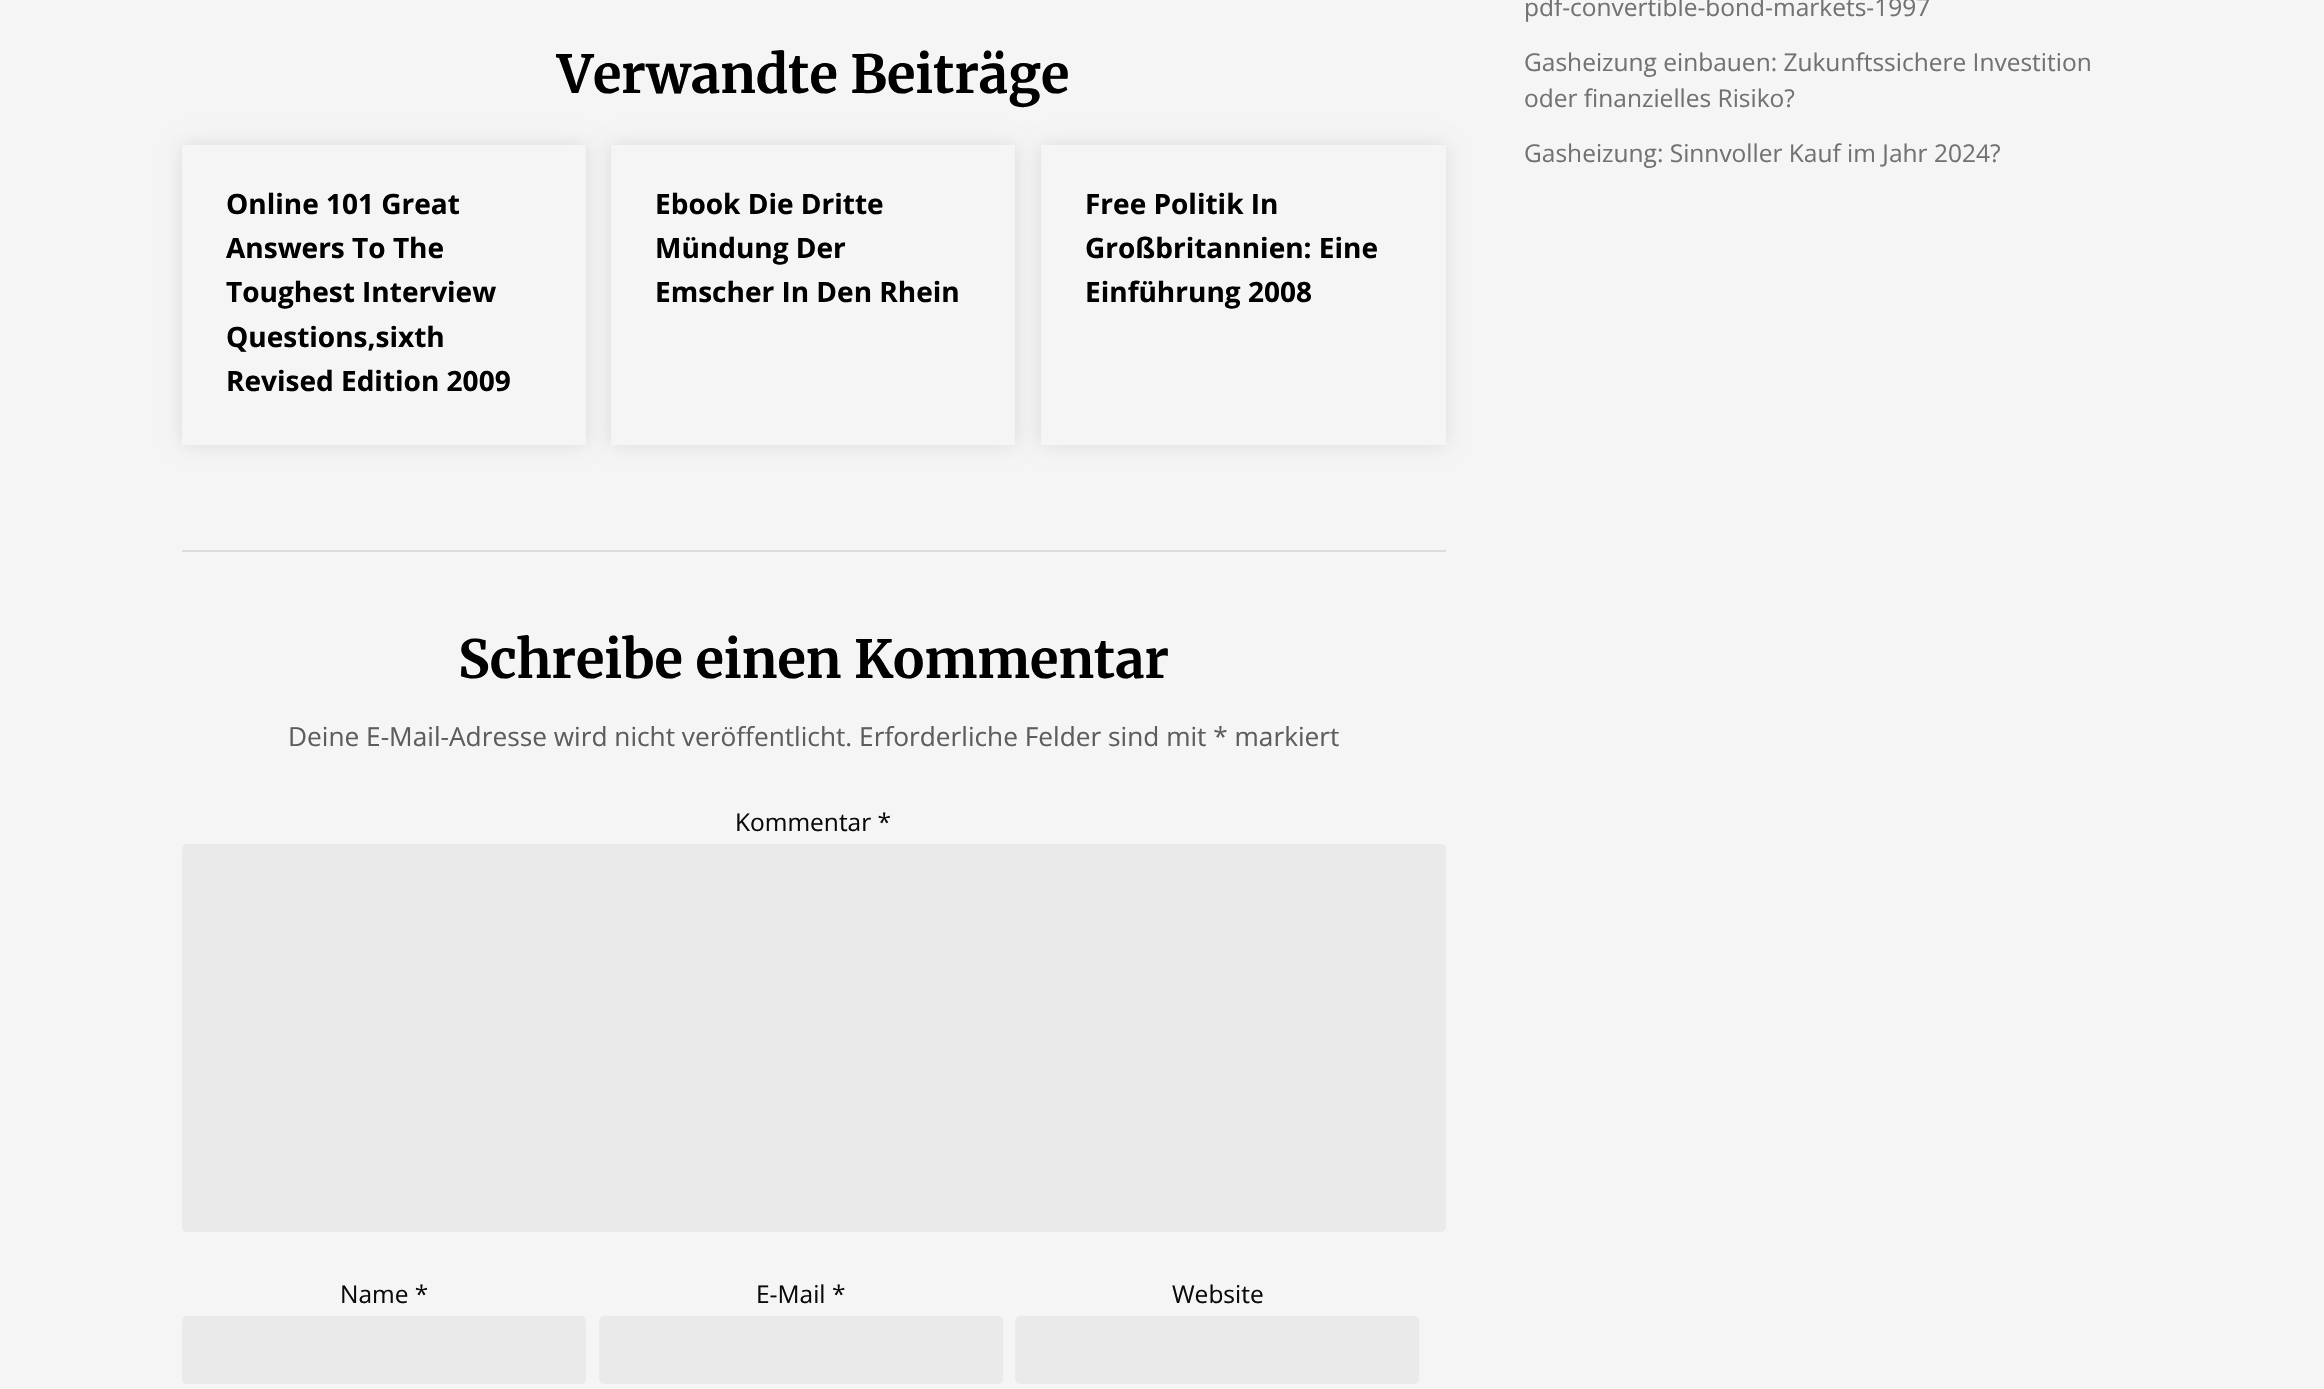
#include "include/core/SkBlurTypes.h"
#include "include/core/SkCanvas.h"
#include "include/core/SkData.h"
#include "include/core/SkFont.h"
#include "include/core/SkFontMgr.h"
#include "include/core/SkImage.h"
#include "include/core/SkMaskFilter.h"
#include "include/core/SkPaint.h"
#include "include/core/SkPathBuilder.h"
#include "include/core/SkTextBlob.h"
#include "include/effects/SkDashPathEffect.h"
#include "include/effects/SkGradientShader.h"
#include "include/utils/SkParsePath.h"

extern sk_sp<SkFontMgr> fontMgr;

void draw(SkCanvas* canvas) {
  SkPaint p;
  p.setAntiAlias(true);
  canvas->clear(SkColorSetRGB(245, 245, 245));
  canvas->save();
  canvas->clipPath(SkPathBuilder(SkPathFillType::kEvenOdd).moveTo(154, 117).lineTo(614, 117).lineTo(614, 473).lineTo(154, 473).close().moveTo(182, 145).lineTo(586, 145).lineTo(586, 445).lineTo(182, 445).close().detach(), true);
  p.setColor(SkColorSetARGB(26, 0, 0, 0));
  p.setMaskFilter(SkMaskFilter::MakeBlur(kNormal_SkBlurStyle, 9));
  canvas->drawRect(SkRect::MakeLTRB(182, 145, 586, 445), p);
  p.setMaskFilter(nullptr);
  canvas->restore();
  canvas->save();
  canvas->clipPath(SkPathBuilder(SkPathFillType::kEvenOdd).moveTo(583, 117).lineTo(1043, 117).lineTo(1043, 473).lineTo(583, 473).close().moveTo(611, 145).lineTo(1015, 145).lineTo(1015, 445).lineTo(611, 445).close().detach(), true);
  p.setMaskFilter(SkMaskFilter::MakeBlur(kNormal_SkBlurStyle, 9));
  canvas->drawRect(SkRect::MakeLTRB(611, 145, 1015, 445), p);
  p.setMaskFilter(nullptr);
  canvas->restore();
  canvas->save();
  canvas->clipPath(SkPathBuilder(SkPathFillType::kEvenOdd).moveTo(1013, 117).lineTo(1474, 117).lineTo(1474, 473).lineTo(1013, 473).close().moveTo(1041, 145).lineTo(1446, 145).lineTo(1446, 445).lineTo(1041, 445).close().detach(), true);
  p.setMaskFilter(SkMaskFilter::MakeBlur(kNormal_SkBlurStyle, 9));
  canvas->drawRect(SkRect::MakeLTRB(1041, 145, 1446, 445), p);
  p.setMaskFilter(nullptr);
  canvas->restore();
  p.setColor(SkColorSetRGB(221, 221, 221));
  canvas->drawRect(SkRect::MakeLTRB(182, 550, 1446, 552), p);
  p.setColor(SkColorSetRGB(234, 234, 234));
  canvas->drawRoundRect(SkRect::MakeLTRB(182, 844, 1446, 1232), 5, 5, p);
  canvas->drawRoundRect(SkRect::MakeLTRB(182, 1316, 586, 1384), 5, 5, p);
  canvas->drawRoundRect(SkRect::MakeLTRB(599, 1316, 1003, 1384), 5, 5, p);
  canvas->drawRoundRect(SkRect::MakeLTRB(1015, 1316, 1419, 1384), 5, 5, p);
  SkFont font1(fontMgr->matchFamilyStyle("Merriweather", SkFontStyle::Bold()), 52.5f);
  font1.setSubpixel(true);
  p.setColor(SK_ColorBLACK);
  canvas->drawString("Verwandte Beiträge", 557, 93, font1, p);
  SkFont font2(fontMgr->matchFamilyStyle("Open Sans", SkFontStyle::Bold()), 28);
  font2.setSubpixel(true);
  canvas->drawString("Online 101 Great", 226, 214, font2, p);
  canvas->drawString("Answers To The", 226, 258, font2, p);
  canvas->drawString("Toughest Interview", 226, 302, font2, p);
  canvas->drawString("Questions,sixth", 226, 347, font2, p);
  canvas->drawString("Revised Edition 2009", 226, 391, font2, p);
  canvas->drawString("Ebook Die Dritte", 655, 214, font2, p);
  canvas->drawString("Mündung Der", 655, 258, font2, p);
  canvas->drawString("Emscher In Den Rhein", 655, 302, font2, p);
  canvas->drawString("Free Politik In", 1085, 214, font2, p);
  canvas->drawString("Großbritannien: Eine", 1085, 258, font2, p);
  canvas->drawString("Einführung 2008", 1085, 302, font2, p);
  canvas->drawString("Schreibe einen Kommentar", 458, 678, font1, p);
  SkFont font3(fontMgr->matchFamilyStyle("Open Sans", SkFontStyle::Normal()), 26.25f);
  font3.setSubpixel(true);
  p.setColor(SkColorSetRGB(93, 93, 93));
  canvas->drawString("Deine E-Mail-Adresse wird nicht veröffentlicht. Erforderliche Felder sind mit * markiert", 288, 746, font3, p);
  SkFont font4(fontMgr->matchFamilyStyle("Open Sans", SkFontStyle::Normal()), 24.5f);
  font4.setSubpixel(true);
  p.setColor(SkColorSetRGB(10, 10, 10));
  canvas->drawString("Kommentar *", 735, 831, font4, p);
  canvas->drawString("Name *", 340, 1303, font4, p);
  canvas->drawString("E-Mail *", 756, 1303, font4, p);
  canvas->drawString("Website", 1172, 1303, font4, p);
  p.setColor(SkColorSetRGB(114, 114, 114));
  canvas->drawString("pdf-convertible-bond-markets-1997", 1524, 16, font4, p);
  canvas->drawString("Gasheizung einbauen: Zukunftssichere Investition", 1524, 71, font4, p);
  canvas->drawString("oder finanzielles Risiko?", 1524, 107, font4, p);
  canvas->drawString("Gasheizung: Sinnvoller Kauf im Jahr 2024?", 1524, 162, font4, p);
}
